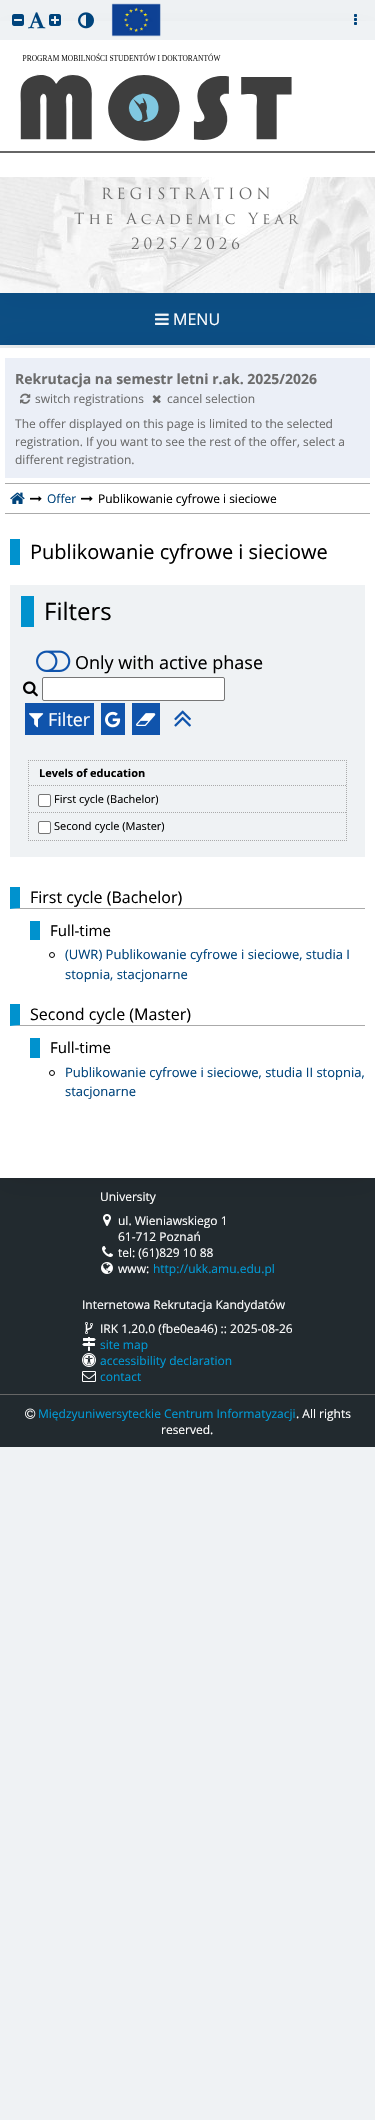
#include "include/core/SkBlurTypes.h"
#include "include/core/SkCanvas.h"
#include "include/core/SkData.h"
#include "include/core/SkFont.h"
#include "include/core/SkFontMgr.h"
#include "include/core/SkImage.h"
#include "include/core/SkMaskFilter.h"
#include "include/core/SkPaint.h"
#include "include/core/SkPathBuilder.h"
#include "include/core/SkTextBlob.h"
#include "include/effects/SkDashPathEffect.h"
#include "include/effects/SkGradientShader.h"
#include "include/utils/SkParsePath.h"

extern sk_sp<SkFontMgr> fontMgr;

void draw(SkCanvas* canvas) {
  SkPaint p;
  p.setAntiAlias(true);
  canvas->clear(SkColorSetRGB(239, 242, 244));
  p.setColor(SkColorSetARGB(26, 0, 0, 0));
  p.setMaskFilter(SkMaskFilter::MakeBlur(kNormal_SkBlurStyle, 15));
  canvas->drawRect(SkRect::MakeLTRB(0, 40, 375, 293), p);
  p.setMaskFilter(nullptr);
  p.setColor(SK_ColorWHITE);
  canvas->drawRect(SkRect::MakeLTRB(0, 40, 375, 177), p);
  canvas->drawImageRect(SkImages::DeferredFromEncodedData(SkData::MakeFromFileName("images/1.png")), SkRect::MakeLTRB(0, 177, 375, 293), SkSamplingOptions());
  canvas->drawImageRect(SkImages::DeferredFromEncodedData(SkData::MakeFromFileName("images/2.png")), SkRect::MakeLTRB(20, 53, 292, 141), SkSamplingOptions());
  p.setColor(SkColorSetRGB(102, 102, 102));
  canvas->drawRect(SkRect::MakeLTRB(0, 151, 375, 153), p);
  canvas->drawImageRect(SkImages::DeferredFromEncodedData(SkData::MakeFromFileName("images/3.png")), SkRect::MakeLTRB(102, 187, 270, 200), SkSamplingOptions());
  canvas->drawImageRect(SkImages::DeferredFromEncodedData(SkData::MakeFromFileName("images/4.png")), SkRect::MakeLTRB(74, 212, 299, 225), SkSamplingOptions());
  canvas->drawImageRect(SkImages::DeferredFromEncodedData(SkData::MakeFromFileName("images/5.png")), SkRect::MakeLTRB(131, 237, 240, 250), SkSamplingOptions());
  p.setColor(SkColorSetRGB(239, 242, 244));
  canvas->drawRect(SkRect::MakeLTRB(0, 21, 375, 40), p);
  canvas->drawImageRect(SkImages::DeferredFromEncodedData(SkData::MakeFromFileName("images/6.png")), SkRect::MakeLTRB(12, 14, 24, 26), SkSamplingOptions());
  canvas->drawImageRect(SkImages::DeferredFromEncodedData(SkData::MakeFromFileName("images/7.png")), SkRect::MakeLTRB(28, 12, 46, 29), SkSamplingOptions());
  canvas->drawImageRect(SkImages::DeferredFromEncodedData(SkData::MakeFromFileName("images/8.png")), SkRect::MakeLTRB(49, 14, 61, 26), SkSamplingOptions());
  canvas->drawImageRect(SkImages::DeferredFromEncodedData(SkData::MakeFromFileName("images/9.png")), SkRect::MakeLTRB(78, 12, 94, 29), SkSamplingOptions());
  canvas->drawImageRect(SkImages::DeferredFromEncodedData(SkData::MakeFromFileName("images/10.png")), SkRect::MakeLTRB(111, 3, 161, 37), SkSamplingOptions());
  canvas->drawImageRect(SkImages::DeferredFromEncodedData(SkData::MakeFromFileName("images/11.png")), SkRect::MakeLTRB(354, 14, 357, 25), SkSamplingOptions());
  p.setColor(SkColorSetRGB(34, 42, 47));
  canvas->drawRect(SkRect::MakeLTRB(0, 1178, 375, 1447), p);
  canvas->drawImageRect(SkImages::DeferredFromEncodedData(SkData::MakeFromFileName("images/23.png")), SkRect::MakeLTRB(103, 1214, 111, 1226), SkSamplingOptions());
  p.setColor(SkColorSetARGB(26, 0, 0, 0));
  p.setMaskFilter(SkMaskFilter::MakeBlur(kNormal_SkBlurStyle, 15));
  canvas->drawRect(SkRect::MakeLTRB(0, 348, 375, 1178), p);
  p.setMaskFilter(nullptr);
  p.setColor(SkColorSetARGB(242, 0, 68, 124));
  canvas->drawRect(SkRect::MakeLTRB(0, 293, 375, 345), p);
  canvas->drawImageRect(SkImages::DeferredFromEncodedData(SkData::MakeFromFileName("images/12.png")), SkRect::MakeLTRB(155, 313, 169, 325), SkSamplingOptions());
  p.setColor(SK_ColorWHITE);
  canvas->drawRect(SkRect::MakeLTRB(0, 348, 375, 1178), p);
  p.setColor(SkColorSetRGB(235, 239, 247));
  canvas->drawRect(SkRect::MakeLTRB(5, 358, 370, 478), p);
  canvas->drawImageRect(SkImages::DeferredFromEncodedData(SkData::MakeFromFileName("images/13.png")), SkRect::MakeLTRB(20, 393, 31, 404), SkSamplingOptions());
  canvas->drawImageRect(SkImages::DeferredFromEncodedData(SkData::MakeFromFileName("images/14.png")), SkRect::MakeLTRB(152, 395, 161, 404), SkSamplingOptions());
  p.setColor(SkColorSetRGB(170, 170, 170));
  canvas->drawRect(SkRect::MakeLTRB(5, 483, 370, 484), p);
  canvas->drawRect(SkRect::MakeLTRB(5, 513, 370, 514), p);
  canvas->drawImageRect(SkImages::DeferredFromEncodedData(SkData::MakeFromFileName("images/15.png")), SkRect::MakeLTRB(10, 492, 25, 504), SkSamplingOptions());
  canvas->drawImageRect(SkImages::DeferredFromEncodedData(SkData::MakeFromFileName("images/16.png")), SkRect::MakeLTRB(30, 496, 42, 502), SkSamplingOptions());
  canvas->drawImageRect(SkImages::DeferredFromEncodedData(SkData::MakeFromFileName("images/16.png")), SkRect::MakeLTRB(81, 496, 93, 502), SkSamplingOptions());
  p.setColor(SkColorSetRGB(0, 146, 206));
  canvas->drawRect(SkRect::MakeLTRB(10, 539, 20, 565), p);
  p.setColor(SkColorSetRGB(239, 242, 244));
  canvas->drawRect(SkRect::MakeLTRB(10, 585, 365, 857), p);
  p.setColor(SkColorSetRGB(0, 146, 206));
  canvas->drawRect(SkRect::MakeLTRB(21, 596, 34, 627), p);
  canvas->drawImageRect(SkImages::DeferredFromEncodedData(SkData::MakeFromFileName("images/17.png")), SkRect::MakeLTRB(36, 650, 71, 672), SkSamplingOptions());
  canvas->drawImageRect(SkImages::DeferredFromEncodedData(SkData::MakeFromFileName("images/18.png")), SkRect::MakeLTRB(23, 681, 38, 697), SkSamplingOptions());
  p.setColor(SK_ColorWHITE);
  canvas->drawRoundRect(SkRect::MakeLTRB(42.5f, 677.5f, 224.5f, 700.5f), 1.5f, 1.5f, p);
  p.setStyle(SkPaint::kStroke_Style);
  p.setStrokeWidth(1);
  p.setColor(SkColorSetRGB(118, 118, 118));
  canvas->drawRoundRect(SkRect::MakeLTRB(42.5f, 677.5f, 224.5f, 700.5f), 1.5f, 1.5f, p);
  p.setStyle(SkPaint::kFill_Style);
  p.setColor(SkColorSetRGB(16, 84, 172));
  canvas->drawRect(SkRect::MakeLTRB(25, 703, 94, 735), p);
  canvas->drawImageRect(SkImages::DeferredFromEncodedData(SkData::MakeFromFileName("images/19.png")), SkRect::MakeLTRB(29, 713, 44, 728), SkSamplingOptions());
  canvas->drawRect(SkRect::MakeLTRB(101, 703, 125, 735), p);
  canvas->drawImageRect(SkImages::DeferredFromEncodedData(SkData::MakeFromFileName("images/20.png")), SkRect::MakeLTRB(105, 711, 121, 728), SkSamplingOptions());
  canvas->drawRect(SkRect::MakeLTRB(132, 703, 160, 735), p);
  canvas->drawImageRect(SkImages::DeferredFromEncodedData(SkData::MakeFromFileName("images/21.png")), SkRect::MakeLTRB(136, 713, 156, 726), SkSamplingOptions());
  canvas->drawImageRect(SkImages::DeferredFromEncodedData(SkData::MakeFromFileName("images/22.png")), SkRect::MakeLTRB(174, 710, 191, 727), SkSamplingOptions());
  p.setStyle(SkPaint::kStroke_Style);
  p.setColor(SkColorSetRGB(170, 170, 170));
  p.setPathEffect(SkDashPathEffect::Make({{1, 1}}, 0));
  canvas->drawPath(SkPathBuilder().moveTo(28, 760.5f).lineTo(347, 760.5f).detach(), p);
  p.setPathEffect(nullptr);
  p.setPathEffect(SkDashPathEffect::Make({{1, 1}}, 0));
  canvas->drawPath(SkPathBuilder().moveTo(346.5f, 760).lineTo(346.5f, 841).detach(), p);
  p.setPathEffect(nullptr);
  p.setPathEffect(SkDashPathEffect::Make({{1, 1}}, 0));
  canvas->drawPath(SkPathBuilder().moveTo(28, 840.5f).lineTo(347, 840.5f).detach(), p);
  p.setPathEffect(nullptr);
  p.setPathEffect(SkDashPathEffect::Make({{1, 1}}, 0));
  canvas->drawPath(SkPathBuilder().moveTo(28.5f, 760).lineTo(28.5f, 841).detach(), p);
  p.setPathEffect(nullptr);
  p.setPathEffect(SkDashPathEffect::Make({{1, 1}}, 0));
  canvas->drawPath(SkPathBuilder().moveTo(29, 785.5f).lineTo(346, 785.5f).detach(), p);
  p.setPathEffect(nullptr);
  p.setStyle(SkPaint::kFill_Style);
  p.setColor(SK_ColorWHITE);
  canvas->drawRoundRect(SkRect::MakeLTRB(38.5f, 794.5f, 50.5f, 806.5f), 1.5f, 1.5f, p);
  p.setStyle(SkPaint::kStroke_Style);
  p.setColor(SkColorSetRGB(118, 118, 118));
  canvas->drawRoundRect(SkRect::MakeLTRB(38.5f, 794.5f, 50.5f, 806.5f), 1.5f, 1.5f, p);
  p.setColor(SkColorSetRGB(170, 170, 170));
  p.setPathEffect(SkDashPathEffect::Make({{1, 1}}, 0));
  canvas->drawPath(SkPathBuilder().moveTo(29, 812.5f).lineTo(346, 812.5f).detach(), p);
  p.setPathEffect(nullptr);
  p.setStyle(SkPaint::kFill_Style);
  p.setColor(SK_ColorWHITE);
  canvas->drawRoundRect(SkRect::MakeLTRB(38.5f, 821.5f, 50.5f, 833.5f), 1.5f, 1.5f, p);
  p.setStyle(SkPaint::kStroke_Style);
  p.setColor(SkColorSetRGB(118, 118, 118));
  canvas->drawRoundRect(SkRect::MakeLTRB(38.5f, 821.5f, 50.5f, 833.5f), 1.5f, 1.5f, p);
  p.setStyle(SkPaint::kFill_Style);
  p.setColor(SkColorSetRGB(170, 170, 170));
  canvas->drawPath(SkPathBuilder().moveTo(365, 909).lineTo(10, 909).lineTo(20, 908).lineTo(365, 908).close().detach(), p);
  p.setColor(SkColorSetRGB(0, 146, 206));
  canvas->drawPath(SkPathBuilder().moveTo(10, 909).lineTo(10, 887).lineTo(20, 887).lineTo(20, 908).close().detach(), p);
  canvas->drawRect(SkRect::MakeLTRB(30, 921, 40, 940), p);
  p.setStyle(SkPaint::kStroke_Style);
  p.setColor(SK_ColorBLACK);
  canvas->drawCircle(52, 955, 2.5f, p);
  p.setStyle(SkPaint::kFill_Style);
  p.setColor(SkColorSetRGB(170, 170, 170));
  canvas->drawPath(SkPathBuilder().moveTo(365, 1026).lineTo(10, 1026).lineTo(20, 1025).lineTo(365, 1025).close().detach(), p);
  p.setColor(SkColorSetRGB(0, 146, 206));
  canvas->drawPath(SkPathBuilder().moveTo(10, 1026).lineTo(10, 1004).lineTo(20, 1004).lineTo(20, 1025).close().detach(), p);
  canvas->drawRect(SkRect::MakeLTRB(30, 1038, 40, 1058), p);
  p.setStyle(SkPaint::kStroke_Style);
  p.setColor(SK_ColorBLACK);
  canvas->drawCircle(52, 1073, 2.5f, p);
  canvas->drawImageRect(SkImages::DeferredFromEncodedData(SkData::MakeFromFileName("images/24.png")), SkRect::MakeLTRB(102, 1246, 113, 1257), SkSamplingOptions());
  canvas->drawImageRect(SkImages::DeferredFromEncodedData(SkData::MakeFromFileName("images/25.png")), SkRect::MakeLTRB(101, 1262, 113, 1274), SkSamplingOptions());
  canvas->drawImageRect(SkImages::DeferredFromEncodedData(SkData::MakeFromFileName("images/26.png")), SkRect::MakeLTRB(85, 1322, 93, 1334), SkSamplingOptions());
  canvas->drawImageRect(SkImages::DeferredFromEncodedData(SkData::MakeFromFileName("images/27.png")), SkRect::MakeLTRB(82, 1337, 96, 1351), SkSamplingOptions());
  canvas->drawImageRect(SkImages::DeferredFromEncodedData(SkData::MakeFromFileName("images/28.png")), SkRect::MakeLTRB(82, 1353, 96, 1367), SkSamplingOptions());
  canvas->drawImageRect(SkImages::DeferredFromEncodedData(SkData::MakeFromFileName("images/29.png")), SkRect::MakeLTRB(82, 1371, 96, 1382), SkSamplingOptions());
  p.setStyle(SkPaint::kFill_Style);
  p.setColor(SkColorSetRGB(102, 102, 102));
  canvas->drawRect(SkRect::MakeLTRB(0, 1394, 375, 1395), p);
  canvas->drawImageRect(SkImages::DeferredFromEncodedData(SkData::MakeFromFileName("images/30.png")), SkRect::MakeLTRB(25, 1408, 36, 1419), SkSamplingOptions());
  SkFont font1(fontMgr->matchFamilyStyle("Open Sans", SkFontStyle::Normal()), 16);
  font1.setSubpixel(true);
  p.setColor(SK_ColorWHITE);
  canvas->drawString("MENU", 173, 325, font1, p);
  SkFont font2(fontMgr->matchFamilyStyle("Open Sans", SkFontStyle::Bold()), 14);
  font2.setSubpixel(true);
  p.setColor(SkColorSetRGB(108, 108, 108));
  canvas->drawString("Rekrutacja na semestr letni r.ak. 2025/2026", 15, 384, font2, p);
  SkFont font3(fontMgr->matchFamilyStyle("Open Sans", SkFontStyle::Normal()), 12);
  font3.setSubpixel(true);
  canvas->drawString("switch registrations", 35, 403, font3, p);
  canvas->drawString("cancel selection", 167, 403, font3, p);
  canvas->drawString("The offer displayed on this page is limited to the selected", 15, 428, font3, p);
  canvas->drawString("registration. If you want to see the rest of the offer, select a", 15, 446, font3, p);
  canvas->drawString("different registration.", 15, 464, font3, p);
  p.setColor(SkColorSetRGB(0, 68, 124));
  canvas->drawString("Offer", 47, 503, font3, p);
  p.setColor(SK_ColorBLACK);
  canvas->drawString("Publikowanie cyfrowe i sieciowe", 98, 503, font3, p);
  SkFont font4(fontMgr->matchFamilyStyle("Open Sans", SkFontStyle::Normal()), 20);
  font4.setSubpixel(true);
  canvas->drawString("Publikowanie cyfrowe i sieciowe", 30, 559, font4, p);
  SkFont font5(fontMgr->matchFamilyStyle("Open Sans", SkFontStyle::Normal()), 24);
  font5.setSubpixel(true);
  canvas->drawString("Filters", 44, 620, font5, p);
  SkFont font6(fontMgr->matchFamilyStyle("Open Sans", SkFontStyle::Normal()), 18);
  font6.setSubpixel(true);
  canvas->drawString("Only with active phase", 75, 669, font6, p);
  p.setColor(SK_ColorWHITE);
  canvas->drawString("Filter", 48, 726, font6, p);
  SkFont font7(fontMgr->matchFamilyStyle("Open Sans", SkFontStyle::Bold()), 11);
  font7.setSubpixel(true);
  p.setColor(SK_ColorBLACK);
  canvas->drawString("Levels of education", 39, 777, font7, p);
  SkFont font8(fontMgr->matchFamilyStyle("Open Sans", SkFontStyle::Normal()), 11);
  font8.setSubpixel(true);
  canvas->drawString("First cycle (Bachelor)", 54, 803, font8, p);
  canvas->drawString("Second cycle (Master)", 54, 830, font8, p);
  canvas->drawString("First cycle (Bachelor)", 30, 903, font1, p);
  SkFont font9(fontMgr->matchFamilyStyle("Open Sans", SkFontStyle::Normal()), 15);
  font9.setSubpixel(true);
  canvas->drawString("Full-time", 50, 936, font9, p);
  SkFont font10(fontMgr->matchFamilyStyle("Open Sans", SkFontStyle::Normal()), 13);
  font10.setSubpixel(true);
  p.setColor(SkColorSetRGB(0, 68, 124));
  canvas->drawString("(UWR) Publikowanie cyfrowe i sieciowe, studia I", 65, 959, font10, p);
  canvas->drawString("stopnia, stacjonarne", 65, 979, font10, p);
  p.setColor(SK_ColorBLACK);
  canvas->drawString("Second cycle (Master)", 30, 1020, font1, p);
  canvas->drawString("Full-time", 50, 1053, font9, p);
  p.setColor(SkColorSetRGB(0, 68, 124));
  canvas->drawString("Publikowanie cyfrowe i sieciowe, studia II stopnia,", 65, 1077, font10, p);
  canvas->drawString("stacjonarne", 65, 1096, font10, p);
  p.setColor(SK_ColorWHITE);
  canvas->drawString("University", 100, 1201, font3, p);
  canvas->drawString("ul. Wieniawskiego 1", 118, 1225, font3, p);
  canvas->drawString("61-712 Poznań", 118, 1241, font3, p);
  canvas->drawString("tel: (61)829 10 88", 118, 1257, font3, p);
  canvas->drawString("www:", 118, 1273, font3, p);
  p.setColor(SkColorSetRGB(0, 154, 214));
  canvas->drawString("http://ukk.amu.edu.pl", 153, 1273, font3, p);
  p.setColor(SK_ColorWHITE);
  canvas->drawString("Internetowa Rekrutacja Kandydatów", 82, 1309, font3, p);
  canvas->drawString("IRK 1.20.0 (fbe0ea46) :: 2025-08-26", 100, 1333, font3, p);
  p.setColor(SkColorSetRGB(0, 154, 214));
  canvas->drawString("site map", 100, 1349, font3, p);
  canvas->drawString("accessibility declaration", 100, 1365, font3, p);
  canvas->drawString("contact", 100, 1381, font3, p);
  canvas->drawString("Międzyuniwersyteckie Centrum Informatyzacji", 38, 1418, font3, p);
  p.setColor(SK_ColorWHITE);
  canvas->drawString(". All rights", 296, 1418, font3, p);
  canvas->drawString("reserved.", 161, 1434, font3, p);
}
